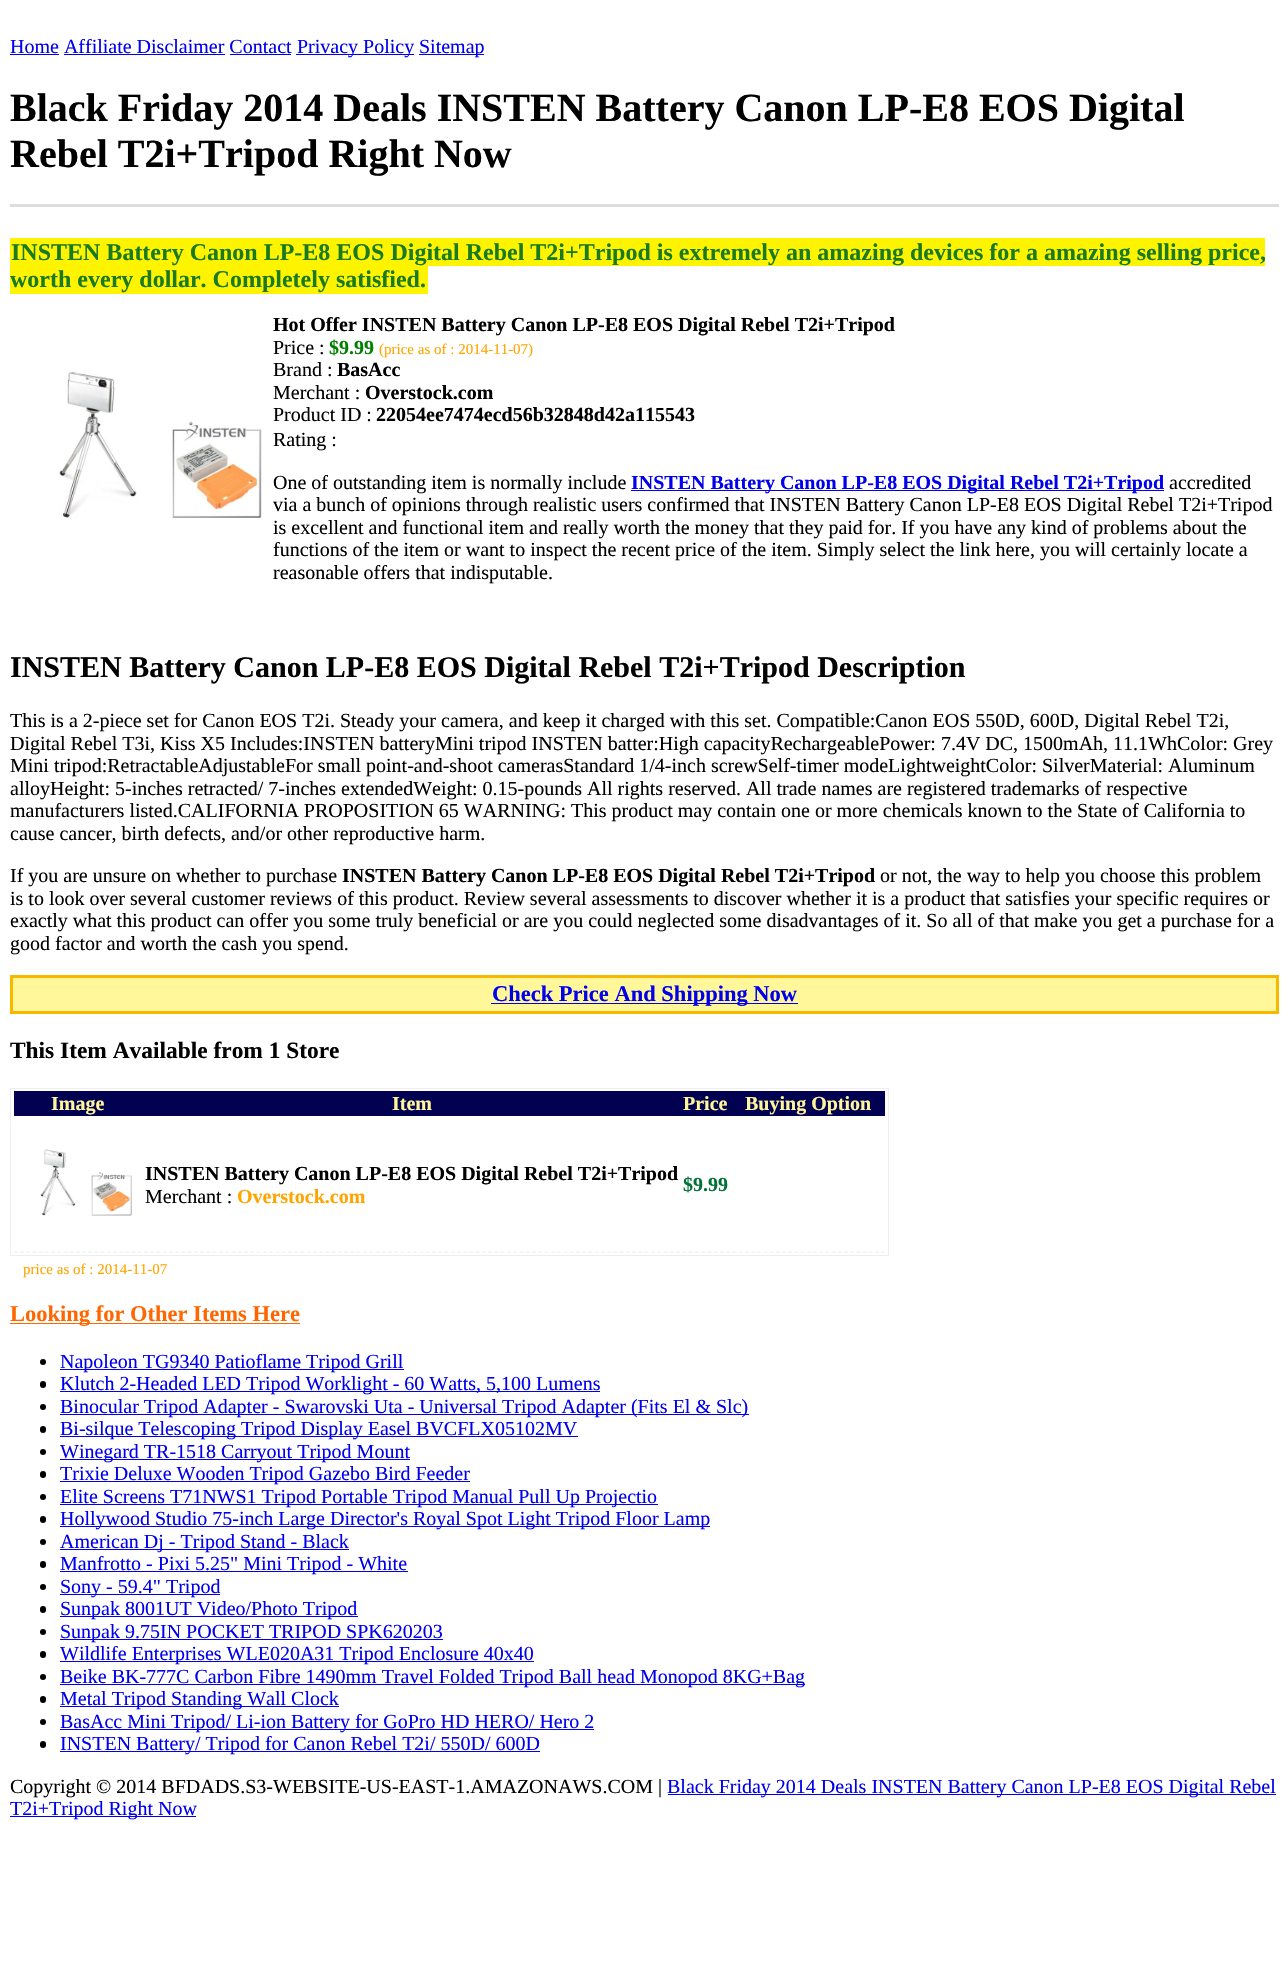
#include "include/core/SkBlurTypes.h"
#include "include/core/SkCanvas.h"
#include "include/core/SkData.h"
#include "include/core/SkFont.h"
#include "include/core/SkFontMgr.h"
#include "include/core/SkImage.h"
#include "include/core/SkMaskFilter.h"
#include "include/core/SkPaint.h"
#include "include/core/SkPathBuilder.h"
#include "include/core/SkTextBlob.h"
#include "include/effects/SkDashPathEffect.h"
#include "include/effects/SkGradientShader.h"
#include "include/utils/SkParsePath.h"

extern sk_sp<SkFontMgr> fontMgr;

void draw(SkCanvas* canvas) {
  SkPaint p;
  p.setAntiAlias(true);
  canvas->clear(SK_ColorWHITE);
  p.setColor(SkColorSetRGB(0, 0, 238));
  canvas->drawRect(SkRect::MakeLTRB(10, 54, 59, 55), p);
  canvas->drawRect(SkRect::MakeLTRB(296, 54, 414, 55), p);
  canvas->drawRect(SkRect::MakeLTRB(419, 54, 484, 55), p);
  canvas->drawRect(SkRect::MakeLTRB(64, 54, 225, 55), p);
  canvas->drawRect(SkRect::MakeLTRB(230, 54, 291, 55), p);
  p.setColor(SkColorSetRGB(221, 221, 221));
  canvas->drawRect(SkRect::MakeLTRB(10, 204, 1279, 207), p);
  p.setColor(SkColorSetRGB(255, 244, 0));
  canvas->drawRect(SkRect::MakeLTRB(10, 238, 1265, 266), p);
  canvas->drawRect(SkRect::MakeLTRB(10, 266, 428, 294), p);
  canvas->drawImageRect(SkImages::DeferredFromEncodedData(SkData::MakeFromFileName("images/1.png")), SkRect::MakeLTRB(59, 371, 263, 518), SkSamplingOptions());
  p.setColor(SkColorSetRGB(0, 0, 238));
  canvas->drawRect(SkRect::MakeLTRB(631, 490, 1164, 491), p);
  p.setColor(SkColorSetRGB(255, 247, 153));
  canvas->drawRect(SkRect::MakeLTRB(11.5f, 976.5f, 1277.5f, 1012.5f), p);
  p.setStyle(SkPaint::kStroke_Style);
  p.setStrokeWidth(3);
  p.setColor(SkColorSetRGB(246, 185, 0));
  canvas->drawRect(SkRect::MakeLTRB(11.5f, 976.5f, 1277.5f, 1012.5f), p);
  p.setStyle(SkPaint::kFill_Style);
  p.setColor(SkColorSetRGB(0, 0, 238));
  canvas->drawRect(SkRect::MakeLTRB(491, 1003, 798, 1004), p);
  p.setStyle(SkPaint::kStroke_Style);
  p.setStrokeWidth(1);
  p.setColor(SkColorSetRGB(238, 238, 238));
  canvas->drawRect(SkRect::MakeLTRB(10.5f, 1088.5f, 888.5f, 1255.5f), p);
  p.setStyle(SkPaint::kFill_Style);
  p.setColor(SkColorSetRGB(2, 0, 80));
  canvas->drawRect(SkRect::MakeLTRB(14, 1091, 885, 1116), p);
  p.setStyle(SkPaint::kStroke_Style);
  p.setStrokeWidth(1.2f);
  p.setColor(SkColorSetRGB(238, 238, 238));
  p.setPathEffect(SkDashPathEffect::Make({{3.75f, 2.44f}}, 0));
  canvas->drawPath(SkPathBuilder().moveTo(14, 1252).lineTo(141, 1252).detach(), p);
  p.setPathEffect(nullptr);
  canvas->drawImageRect(SkImages::DeferredFromEncodedData(SkData::MakeFromFileName("images/2.png")), SkRect::MakeLTRB(40, 1149, 132, 1216), SkSamplingOptions());
  p.setPathEffect(SkDashPathEffect::Make({{3.75f, 2.51f}}, 0));
  canvas->drawPath(SkPathBuilder().moveTo(144, 1252).lineTo(680, 1252).detach(), p);
  p.setPathEffect(nullptr);
  p.setColor(SkColorSetRGB(235, 235, 235));
  p.setPathEffect(SkDashPathEffect::Make({{3.75f, 2.5f}}, 0));
  canvas->drawPath(SkPathBuilder().moveTo(682.5f, 1252).lineTo(730, 1252).detach(), p);
  p.setPathEffect(nullptr);
  p.setColor(SkColorSetRGB(238, 238, 238));
  p.setPathEffect(SkDashPathEffect::Make({{3.75f, 2.45f}}, 0));
  canvas->drawPath(SkPathBuilder().moveTo(732.5f, 1252).lineTo(885, 1252).detach(), p);
  p.setPathEffect(nullptr);
  p.setStyle(SkPaint::kFill_Style);
  p.setColor(SkColorSetRGB(255, 102, 0));
  canvas->drawRect(SkRect::MakeLTRB(10, 1323, 300, 1324), p);
  p.setColor(SK_ColorBLACK);
  canvas->drawCircle(43, 1362, 3, p);
  p.setColor(SkColorSetRGB(0, 0, 238));
  canvas->drawRect(SkRect::MakeLTRB(60, 1369, 404, 1370), p);
  p.setColor(SK_ColorBLACK);
  canvas->drawRoundRect(SkRect::MakeLTRB(40, 1381, 46, 1388), 3, 3, p);
  p.setColor(SkColorSetRGB(0, 0, 238));
  canvas->drawRect(SkRect::MakeLTRB(60, 1391, 600, 1392), p);
  p.setColor(SK_ColorBLACK);
  canvas->drawCircle(43, 1407, 3, p);
  p.setColor(SkColorSetRGB(0, 0, 238));
  canvas->drawRect(SkRect::MakeLTRB(60, 1414, 749, 1415), p);
  p.setColor(SK_ColorBLACK);
  canvas->drawRoundRect(SkRect::MakeLTRB(40, 1426, 46, 1433), 3, 3, p);
  p.setColor(SkColorSetRGB(0, 0, 238));
  canvas->drawRect(SkRect::MakeLTRB(60, 1436, 578, 1437), p);
  p.setColor(SK_ColorBLACK);
  canvas->drawCircle(43, 1452, 3, p);
  p.setColor(SkColorSetRGB(0, 0, 238));
  canvas->drawRect(SkRect::MakeLTRB(60, 1459, 410, 1460), p);
  p.setColor(SK_ColorBLACK);
  canvas->drawRoundRect(SkRect::MakeLTRB(40, 1471, 46, 1478), 3, 3, p);
  p.setColor(SkColorSetRGB(0, 0, 238));
  canvas->drawRect(SkRect::MakeLTRB(60, 1481, 470, 1482), p);
  p.setColor(SK_ColorBLACK);
  canvas->drawCircle(43, 1497, 3, p);
  p.setColor(SkColorSetRGB(0, 0, 238));
  canvas->drawRect(SkRect::MakeLTRB(60, 1504, 658, 1505), p);
  p.setColor(SK_ColorBLACK);
  canvas->drawRoundRect(SkRect::MakeLTRB(40, 1516, 46, 1523), 3, 3, p);
  p.setColor(SkColorSetRGB(0, 0, 238));
  canvas->drawRect(SkRect::MakeLTRB(60, 1526, 710, 1527), p);
  p.setColor(SK_ColorBLACK);
  canvas->drawCircle(43, 1542, 3, p);
  p.setColor(SkColorSetRGB(0, 0, 238));
  canvas->drawRect(SkRect::MakeLTRB(60, 1549, 349, 1550), p);
  p.setColor(SK_ColorBLACK);
  canvas->drawRoundRect(SkRect::MakeLTRB(40, 1561, 46, 1568), 3, 3, p);
  p.setColor(SkColorSetRGB(0, 0, 238));
  canvas->drawRect(SkRect::MakeLTRB(60, 1571, 408, 1572), p);
  p.setColor(SK_ColorBLACK);
  canvas->drawCircle(43, 1587, 3, p);
  p.setColor(SkColorSetRGB(0, 0, 238));
  canvas->drawRect(SkRect::MakeLTRB(60, 1594, 220, 1595), p);
  p.setColor(SK_ColorBLACK);
  canvas->drawRoundRect(SkRect::MakeLTRB(40, 1606, 46, 1613), 3, 3, p);
  p.setColor(SkColorSetRGB(0, 0, 238));
  canvas->drawRect(SkRect::MakeLTRB(60, 1616, 358, 1617), p);
  p.setColor(SK_ColorBLACK);
  canvas->drawCircle(43, 1632, 3, p);
  p.setColor(SkColorSetRGB(0, 0, 238));
  canvas->drawRect(SkRect::MakeLTRB(60, 1639, 443, 1640), p);
  p.setColor(SK_ColorBLACK);
  canvas->drawRoundRect(SkRect::MakeLTRB(40, 1651, 46, 1658), 3, 3, p);
  p.setColor(SkColorSetRGB(0, 0, 238));
  canvas->drawRect(SkRect::MakeLTRB(60, 1661, 534, 1662), p);
  p.setColor(SK_ColorBLACK);
  canvas->drawCircle(43, 1677, 3, p);
  p.setColor(SkColorSetRGB(0, 0, 238));
  canvas->drawRect(SkRect::MakeLTRB(60, 1684, 805, 1685), p);
  p.setColor(SK_ColorBLACK);
  canvas->drawRoundRect(SkRect::MakeLTRB(40, 1696, 46, 1703), 3, 3, p);
  p.setColor(SkColorSetRGB(0, 0, 238));
  canvas->drawRect(SkRect::MakeLTRB(60, 1706, 339, 1707), p);
  p.setColor(SK_ColorBLACK);
  canvas->drawCircle(43, 1722, 3, p);
  p.setColor(SkColorSetRGB(0, 0, 238));
  canvas->drawRect(SkRect::MakeLTRB(60, 1729, 594, 1730), p);
  p.setColor(SK_ColorBLACK);
  canvas->drawRoundRect(SkRect::MakeLTRB(40, 1741, 46, 1748), 3, 3, p);
  p.setColor(SkColorSetRGB(0, 0, 238));
  canvas->drawRect(SkRect::MakeLTRB(60, 1751, 540, 1752), p);
  canvas->drawRect(SkRect::MakeLTRB(668, 1794, 1276, 1795), p);
  canvas->drawRect(SkRect::MakeLTRB(10, 1816, 196, 1817), p);
  SkFont font1(fontMgr->matchFamilyStyle("Liberation Serif", SkFontStyle::Normal()), 20);
  font1.setSubpixel(true);
  canvas->drawString("Home Affiliate Disclaimer Contact", 10, 53, font1, p);
  canvas->drawString("Privacy Policy", 297, 53, font1, p);
  canvas->drawString("Sitemap", 419, 53, font1, p);
  SkFont font2(fontMgr->matchFamilyStyle("Liberation Serif", SkFontStyle::Bold()), 40);
  font2.setSubpixel(true);
  p.setColor(SK_ColorBLACK);
  canvas->drawString("Black Friday 2014 Deals INSTEN Battery Canon LP-E8 EOS Digital", 10, 121, font2, p);
  canvas->drawString("Rebel T2i+Tripod Right Now", 10, 167, font2, p);
  SkFont font3(fontMgr->matchFamilyStyle("Liberation Serif", SkFontStyle::Bold()), 24);
  font3.setSubpixel(true);
  p.setColor(SkColorSetRGB(25, 122, 32));
  canvas->drawString("INSTEN Battery Canon LP-E8 EOS Digital Rebel T2i+Tripod is extremely an amazing devices for a amazing selling price,", 11, 260, font3, p);
  canvas->drawString("worth every dollar. Completely satisfied.", 10, 287, font3, p);
  SkFont font4(fontMgr->matchFamilyStyle("Liberation Serif", SkFontStyle::Bold()), 20);
  font4.setSubpixel(true);
  p.setColor(SK_ColorBLACK);
  canvas->drawString("Hot Offer INSTEN Battery Canon LP-E8 EOS Digital Rebel T2i+Tripod", 273, 331, font4, p);
  canvas->drawString("Price :", 273, 354, font1, p);
  p.setColor(SkColorSetRGB(0, 128, 0));
  canvas->drawString("$9.99", 329, 354, font4, p);
  SkFont font5(fontMgr->matchFamilyStyle("Liberation Serif", SkFontStyle::Normal()), 15);
  font5.setSubpixel(true);
  p.setColor(SkColorSetRGB(255, 165, 0));
  canvas->drawString("(price as of : 2014-11-07)", 379, 354, font5, p);
  p.setColor(SK_ColorBLACK);
  canvas->drawString("Brand :", 273, 376, font1, p);
  canvas->drawString("BasAcc", 337, 376, font4, p);
  canvas->drawString("Merchant :", 273, 399, font1, p);
  canvas->drawString("Overstock.com", 365, 399, font4, p);
  canvas->drawString("Product ID :", 273, 421, font1, p);
  canvas->drawString("22054ee7474ecd56b32848d42a115543", 376, 421, font4, p);
  canvas->drawString("Rating :", 273, 446, font1, p);
  canvas->drawString("One of outstanding item is normally include", 273, 489, font1, p);
  p.setColor(SkColorSetRGB(0, 0, 238));
  canvas->drawString("INSTEN Battery Canon LP-E8 EOS Digital Rebel T2i+Tripod", 631, 489, font4, p);
  p.setColor(SK_ColorBLACK);
  canvas->drawString("accredited", 1169, 489, font1, p);
  canvas->drawString("via a bunch of opinions through realistic users confirmed that INSTEN Battery Canon LP-E8 EOS Digital Rebel T2i+Tripod", 273, 511, font1, p);
  canvas->drawString("is excellent and functional item and really worth the money that they paid for. If you have any kind of problems about the", 273, 534, font1, p);
  canvas->drawString("functions of the item or want to inspect the recent price of the item. Simply select the link here, you will certainly locate a", 273, 556, font1, p);
  canvas->drawString("reasonable offers that indisputable.", 273, 579, font1, p);
  SkFont font6(fontMgr->matchFamilyStyle("Liberation Serif", SkFontStyle::Bold()), 30);
  font6.setSubpixel(true);
  canvas->drawString("INSTEN Battery Canon LP-E8 EOS Digital Rebel T2i+Tripod Description", 10, 677, font6, p);
  canvas->drawString("This is a 2-piece set for Canon EOS T2i. Steady your camera, and keep it charged with this set. Compatible:Canon EOS 550D, 600D, Digital Rebel T2i,", 10, 727, font1, p);
  canvas->drawString("Digital Rebel T3i, Kiss X5 Includes:INSTEN batteryMini tripod INSTEN batter:High capacityRechargeablePower: 7.4V DC, 1500mAh, 11.1WhColor: Grey", 10, 750, font1, p);
  canvas->drawString("Mini tripod:RetractableAdjustableFor small point-and-shoot camerasStandard 1/4-inch screwSelf-timer modeLightweightColor: SilverMaterial: Aluminum", 10, 772, font1, p);
  canvas->drawString("alloyHeight: 5-inches retracted/ 7-inches extendedWeight: 0.15-pounds All rights reserved. All trade names are registered trademarks of respective", 10, 795, font1, p);
  canvas->drawString("manufacturers listed.CALIFORNIA PROPOSITION 65 WARNING: This product may contain one or more chemicals known to the State of California to", 10, 817, font1, p);
  canvas->drawString("cause cancer, birth defects, and/or other reproductive harm.", 10, 840, font1, p);
  canvas->drawString("If you are unsure on whether to purchase", 10, 882, font1, p);
  canvas->drawString("INSTEN Battery Canon LP-E8 EOS Digital Rebel T2i+Tripod", 342, 882, font4, p);
  canvas->drawString("or not, the way to help you choose this problem", 880, 882, font1, p);
  canvas->drawString("is to look over several customer reviews of this product. Review several assessments to discover whether it is a product that satisfies your specific requires or", 10, 905, font1, p);
  canvas->drawString("exactly what this product can offer you some truly beneficial or are you could neglected some disadvantages of it. So all of that make you get a purchase for a", 10, 927, font1, p);
  canvas->drawString("good factor and worth the cash you spend.", 10, 950, font1, p);
  SkFont font7(fontMgr->matchFamilyStyle("Liberation Serif", SkFontStyle::Bold()), 22.5f);
  font7.setSubpixel(true);
  p.setColor(SkColorSetRGB(0, 0, 238));
  canvas->drawString("Check Price And Shipping Now", 492, 1001, font7, p);
  SkFont font8(fontMgr->matchFamilyStyle("Liberation Serif", SkFontStyle::Bold()), 23.4f);
  font8.setSubpixel(true);
  p.setColor(SK_ColorBLACK);
  canvas->drawString("This Item Available from 1 Store", 10, 1058, font8, p);
  p.setColor(SkColorSetRGB(255, 247, 153));
  canvas->drawString("Image", 51, 1110, font4, p);
  canvas->drawString("Item", 392, 1110, font4, p);
  canvas->drawString("Price", 683, 1110, font4, p);
  canvas->drawString("Buying Option", 745, 1110, font4, p);
  p.setColor(SK_ColorBLACK);
  canvas->drawString("INSTEN Battery Canon LP-E8 EOS Digital Rebel T2i+Tripod", 145, 1180, font4, p);
  canvas->drawString("Merchant :", 145, 1203, font1, p);
  p.setColor(SkColorSetRGB(255, 165, 0));
  canvas->drawString("Overstock.com", 237, 1203, font4, p);
  p.setColor(SkColorSetRGB(0, 114, 54));
  canvas->drawString("$9.99", 683, 1191, font4, p);
  p.setColor(SkColorSetRGB(255, 165, 0));
  canvas->drawString("price as of : 2014-11-07", 23, 1274, font5, p);
  p.setColor(SkColorSetRGB(255, 102, 0));
  canvas->drawString("Looking for Other Items Here", 10, 1321, font7, p);
  p.setColor(SkColorSetRGB(0, 0, 238));
  canvas->drawString("Napoleon TG9340 Patioflame Tripod Grill", 60, 1368, font1, p);
  canvas->drawString("Klutch 2-Headed LED Tripod Worklight - 60 Watts, 5,100 Lumens", 60, 1390, font1, p);
  canvas->drawString("Binocular Tripod Adapter - Swarovski Uta - Universal Tripod Adapter (Fits El & Slc)", 60, 1413, font1, p);
  canvas->drawString("Bi-silque Telescoping Tripod Display Easel BVCFLX05102MV", 60, 1435, font1, p);
  canvas->drawString("Winegard TR-1518 Carryout Tripod Mount", 60, 1458, font1, p);
  canvas->drawString("Trixie Deluxe Wooden Tripod Gazebo Bird Feeder", 60, 1480, font1, p);
  canvas->drawString("Elite Screens T71NWS1 Tripod Portable Tripod Manual Pull Up Projectio", 60, 1503, font1, p);
  canvas->drawString("Hollywood Studio 75-inch Large Director's Royal Spot Light Tripod Floor Lamp", 60, 1525, font1, p);
  canvas->drawString("American Dj - Tripod Stand - Black", 60, 1548, font1, p);
  canvas->drawString("Manfrotto - Pixi 5.25\" Mini Tripod - White", 60, 1570, font1, p);
  canvas->drawString("Sony - 59.4\" Tripod", 60, 1593, font1, p);
  canvas->drawString("Sunpak 8001UT Video/Photo Tripod", 60, 1615, font1, p);
  canvas->drawString("Sunpak 9.75IN POCKET TRIPOD SPK620203", 60, 1638, font1, p);
  canvas->drawString("Wildlife Enterprises WLE020A31 Tripod Enclosure 40x40", 60, 1660, font1, p);
  canvas->drawString("Beike BK-777C Carbon Fibre 1490mm Travel Folded Tripod Ball head Monopod 8KG+Bag", 60, 1683, font1, p);
  canvas->drawString("Metal Tripod Standing Wall Clock", 60, 1705, font1, p);
  canvas->drawString("BasAcc Mini Tripod/ Li-ion Battery for GoPro HD HERO/ Hero 2", 60, 1728, font1, p);
  canvas->drawString("INSTEN Battery/ Tripod for Canon Rebel T2i/ 550D/ 600D", 60, 1750, font1, p);
  p.setColor(SK_ColorBLACK);
  canvas->drawString("Copyright © 2014 BFDADS.S3-WEBSITE-US-EAST-1.AMAZONAWS.COM |", 10, 1793, font1, p);
  p.setColor(SkColorSetRGB(0, 0, 238));
  canvas->drawString("Black Friday 2014 Deals INSTEN Battery Canon LP-E8 EOS Digital Rebel", 667, 1793, font1, p);
  canvas->drawString("T2i+Tripod Right Now", 10, 1815, font1, p);
}
